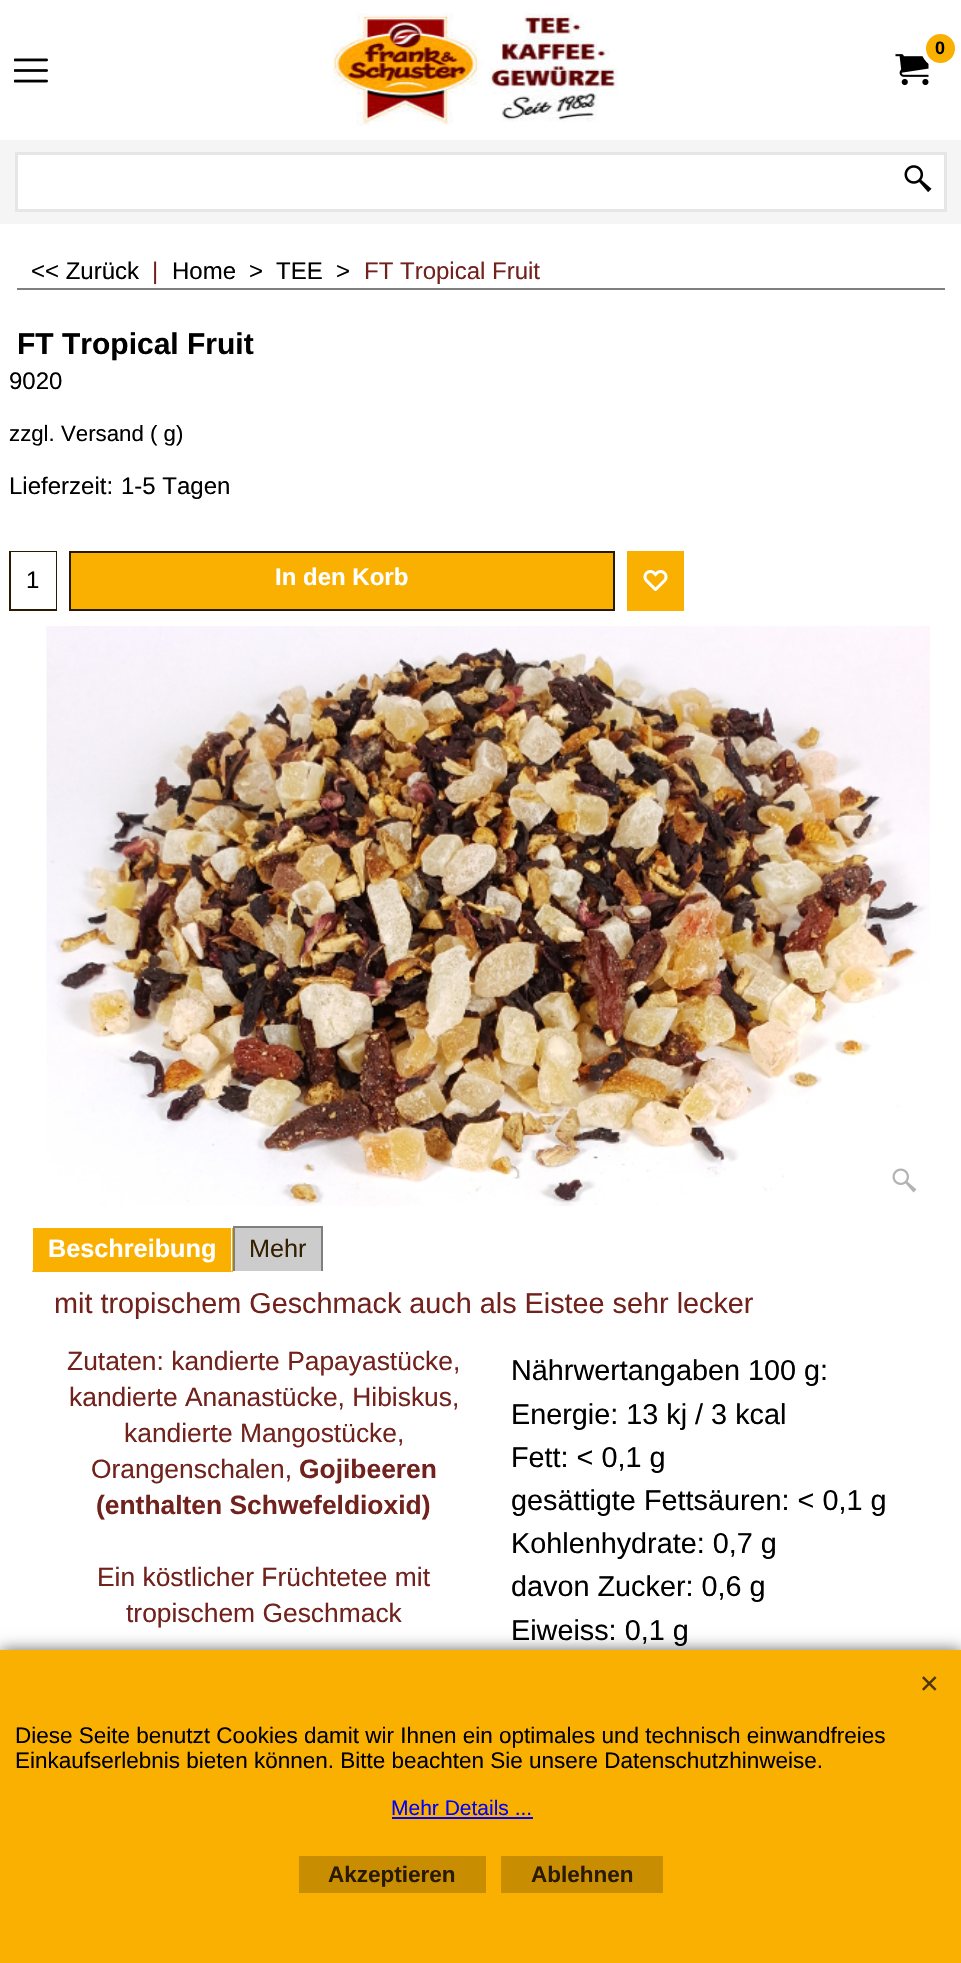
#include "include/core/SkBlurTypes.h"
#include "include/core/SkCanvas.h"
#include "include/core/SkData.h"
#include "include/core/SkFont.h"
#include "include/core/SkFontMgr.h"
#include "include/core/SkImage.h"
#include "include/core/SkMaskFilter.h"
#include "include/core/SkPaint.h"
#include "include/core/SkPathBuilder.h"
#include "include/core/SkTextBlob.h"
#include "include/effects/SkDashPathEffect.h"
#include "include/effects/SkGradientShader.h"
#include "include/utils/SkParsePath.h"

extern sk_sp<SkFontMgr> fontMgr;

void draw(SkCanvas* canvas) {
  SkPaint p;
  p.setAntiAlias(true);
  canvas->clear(SK_ColorWHITE);
  canvas->drawImageRect(SkImages::DeferredFromEncodedData(SkData::MakeFromFileName("images/1.png")), SkRect::MakeLTRB(333, 13, 618, 126), SkSamplingOptions());
  canvas->drawImageRect(SkImages::DeferredFromEncodedData(SkData::MakeFromFileName("images/2.png")), SkRect::MakeLTRB(895, 54, 929, 86), SkSamplingOptions());
  p.setColor(SkColorSetRGB(250, 176, 1));
  canvas->drawCircle(940.5f, 48.5f, 17, p);
  p.setStyle(SkPaint::kStroke_Style);
  p.setStrokeWidth(5);
  p.setColor(SK_ColorWHITE);
  canvas->drawCircle(940.5f, 48.5f, 17, p);
  canvas->drawImageRect(SkImages::DeferredFromEncodedData(SkData::MakeFromFileName("images/3.png")), SkRect::MakeLTRB(14, 58, 48, 83), SkSamplingOptions());
  p.setStyle(SkPaint::kFill_Style);
  p.setColor(SkColorSetRGB(245, 245, 246));
  canvas->drawRect(SkRect::MakeLTRB(0, 140, 961, 224), p);
  p.setColor(SK_ColorWHITE);
  canvas->drawRect(SkRect::MakeLTRB(16.5f, 153.5f, 945.5f, 210.5f), p);
  p.setStyle(SkPaint::kStroke_Style);
  p.setStrokeWidth(3);
  p.setColor(SkColorSetRGB(230, 230, 230));
  canvas->drawRect(SkRect::MakeLTRB(16.5f, 153.5f, 945.5f, 210.5f), p);
  canvas->drawImageRect(SkImages::DeferredFromEncodedData(SkData::MakeFromFileName("images/4.png")), SkRect::MakeLTRB(904, 165, 932, 193), SkSamplingOptions());
  p.setStyle(SkPaint::kFill_Style);
  p.setColor(SkColorSetRGB(127, 127, 127));
  canvas->drawRect(SkRect::MakeLTRB(17, 288, 945, 290), p);
  p.setStyle(SkPaint::kStroke_Style);
  p.setStrokeWidth(2);
  p.setColor(SkColorSetRGB(42, 26, 0));
  canvas->drawRect(SkRect::MakeLTRB(10, 552, 56, 610), p);
  p.setStyle(SkPaint::kFill_Style);
  p.setColor(SK_ColorWHITE);
  canvas->drawRect(SkRect::MakeLTRB(11, 552, 56, 609), p);
  p.setColor(SkColorSetRGB(250, 176, 1));
  canvas->drawRect(SkRect::MakeLTRB(70, 552, 614, 610), p);
  p.setStyle(SkPaint::kStroke_Style);
  p.setColor(SkColorSetRGB(42, 26, 0));
  canvas->drawRect(SkRect::MakeLTRB(70, 552, 614, 610), p);
  p.setStyle(SkPaint::kFill_Style);
  p.setColor(SkColorSetRGB(250, 176, 1));
  canvas->drawRect(SkRect::MakeLTRB(627, 551, 684, 611), p);
  canvas->drawImageRect(SkImages::DeferredFromEncodedData(SkData::MakeFromFileName("images/5.png")), SkRect::MakeLTRB(643, 570, 668, 591), SkSamplingOptions());
  canvas->drawImageRect(SkImages::DeferredFromEncodedData(SkData::MakeFromFileName("images/6.png")), SkRect::MakeLTRB(46, 626, 930, 1206), SkSamplingOptions());
  canvas->drawImageRect(SkImages::DeferredFromEncodedData(SkData::MakeFromFileName("images/7.png")), SkRect::MakeLTRB(892, 1168, 917, 1193), SkSamplingOptions());
  canvas->drawRect(SkRect::MakeLTRB(32, 1228, 233, 1272), p);
  p.setColor(SK_ColorWHITE);
  canvas->drawPath(SkPathBuilder().moveTo(232, 1226).lineTo(232, 1272).lineTo(231, 1270).lineTo(231, 1227).close().detach(), p);
  canvas->drawPath(SkPathBuilder().moveTo(32, 1272).lineTo(32, 1226).lineTo(33, 1227).lineTo(33, 1270).close().detach(), p);
  p.setColor(SkColorSetRGB(204, 204, 204));
  canvas->drawRect(SkRect::MakeLTRB(235, 1228, 321, 1271), p);
  p.setColor(SkColorSetRGB(127, 127, 127));
  canvas->drawRect(SkRect::MakeLTRB(233, 1226, 323, 1228), p);
  canvas->drawRect(SkRect::MakeLTRB(321, 1226, 323, 1271), p);
  canvas->drawRect(SkRect::MakeLTRB(233, 1226, 235, 1271), p);
  p.setColor(SkColorSetRGB(102, 102, 102));
  p.setMaskFilter(SkMaskFilter::MakeBlur(kNormal_SkBlurStyle, 7.5f));
  canvas->drawRect(SkRect::MakeLTRB(0, 1650, 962, 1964), p);
  p.setMaskFilter(nullptr);
  p.setColor(SkColorSetRGB(250, 176, 1));
  canvas->drawRect(SkRect::MakeLTRB(0, 1650, 961, 1963), p);
  canvas->drawImageRect(SkImages::DeferredFromEncodedData(SkData::MakeFromFileName("images/8.png")), SkRect::MakeLTRB(922, 1676, 937, 1691), SkSamplingOptions());
  p.setColor(SkColorSetRGB(0, 0, 255));
  canvas->drawRect(SkRect::MakeLTRB(392, 1817, 533, 1819), p);
  p.setColor(SkColorSetRGB(200, 141, 1));
  canvas->drawRect(SkRect::MakeLTRB(299, 1856, 486, 1893), p);
  canvas->drawRect(SkRect::MakeLTRB(501, 1856, 663, 1893), p);
  SkFont font1(fontMgr->matchFamilyStyle("Liberation Sans", SkFontStyle::Bold()), 18);
  font1.setSubpixel(true);
  p.setColor(SK_ColorBLACK);
  canvas->drawString("0", 935, 54, font1, p);
  SkFont font2(fontMgr->matchFamilyStyle("Liberation Sans", SkFontStyle::Normal()), 24);
  font2.setSubpixel(true);
  canvas->drawString("<< Zurück", 31, 279, font2, p);
  p.setColor(SkColorSetRGB(113, 34, 29));
  canvas->drawString("|", 152, 279, font2, p);
  p.setColor(SK_ColorBLACK);
  canvas->drawString("Home", 172, 279, font2, p);
  canvas->drawString(">", 249, 279, font2, p);
  canvas->drawString("TEE", 276, 279, font2, p);
  canvas->drawString(">", 336, 279, font2, p);
  p.setColor(SkColorSetRGB(113, 34, 29));
  canvas->drawString("FT Tropical Fruit", 364, 279, font2, p);
  SkFont font3(fontMgr->matchFamilyStyle("Liberation Sans", SkFontStyle::Bold()), 30);
  font3.setSubpixel(true);
  p.setColor(SK_ColorBLACK);
  canvas->drawString("FT Tropical Fruit", 17, 354, font3, p);
  canvas->drawString("9020", 9, 389, font2, p);
  SkFont font4(fontMgr->matchFamilyStyle("Liberation Sans", SkFontStyle::Normal()), 22.25f);
  font4.setSubpixel(true);
  canvas->drawString("zzgl. Versand ( g)", 9, 441, font4, p);
  canvas->drawString("Lieferzeit:", 9, 494, font2, p);
  canvas->drawString("1-5 Tagen", 121, 494, font2, p);
  canvas->drawString("1", 26, 588, font2, p);
  SkFont font5(fontMgr->matchFamilyStyle("Liberation Sans", SkFontStyle::Bold()), 24);
  font5.setSubpixel(true);
  p.setColor(SK_ColorWHITE);
  canvas->drawString("In den Korb", 275, 585, font5, p);
  SkFont font6(fontMgr->matchFamilyStyle("Liberation Sans", SkFontStyle::Bold()), 25.25f);
  font6.setSubpixel(true);
  canvas->drawString("Beschreibung", 48, 1257, font6, p);
  SkFont font7(fontMgr->matchFamilyStyle("Liberation Sans", SkFontStyle::Normal()), 25.25f);
  font7.setSubpixel(true);
  p.setColor(SkColorSetRGB(52, 32, 0));
  canvas->drawString("Mehr", 249, 1257, font7, p);
  SkFont font8(fontMgr->matchFamilyStyle("Liberation Sans", SkFontStyle::Normal()), 28.8f);
  font8.setSubpixel(true);
  p.setColor(SkColorSetRGB(113, 34, 29));
  canvas->drawString("mit tropischem Geschmack auch als Eistee sehr lecker", 54, 1313, font8, p);
  SkFont font9(fontMgr->matchFamilyStyle("Liberation Sans", SkFontStyle::Normal()), 26.4f);
  font9.setSubpixel(true);
  canvas->drawString("Zutaten: kandierte Papayastücke,", 67, 1370, font9, p);
  canvas->drawString("kandierte Ananastücke, Hibiskus,", 69, 1406, font9, p);
  canvas->drawString("kandierte Mangostücke,", 124, 1442, font9, p);
  canvas->drawString("Orangenschalen,", 91, 1478, font9, p);
  SkFont font10(fontMgr->matchFamilyStyle("Liberation Sans", SkFontStyle::Bold()), 26.4f);
  font10.setSubpixel(true);
  canvas->drawString("Gojibeeren", 299, 1478, font10, p);
  canvas->drawString("(enthalten Schwefeldioxid)", 96, 1514, font10, p);
  canvas->drawString("Ein köstlicher Früchtetee mit", 97, 1586, font9, p);
  canvas->drawString("tropischem Geschmack", 126, 1622, font9, p);
  p.setColor(SK_ColorBLACK);
  canvas->drawString("Nährwertangaben 100 g:", 511, 1380, font8, p);
  canvas->drawString("Energie: 13 kj / 3 kcal", 511, 1424, font8, p);
  canvas->drawString("Fett: < 0,1 g", 511, 1467, font8, p);
  canvas->drawString("gesättigte Fettsäuren: < 0,1 g", 511, 1510, font8, p);
  canvas->drawString("Kohlenhydrate: 0,7 g", 511, 1553, font8, p);
  canvas->drawString("davon Zucker: 0,6 g", 511, 1596, font8, p);
  canvas->drawString("Eiweiss: 0,1 g", 511, 1640, font8, p);
  SkFont font11(fontMgr->matchFamilyStyle("Liberation Sans", SkFontStyle::Normal()), 22.5f);
  font11.setSubpixel(true);
  canvas->drawString("Diese Seite benutzt Cookies damit wir Ihnen ein optimales und technisch einwandfreies", 15, 1743, font11, p);
  canvas->drawString("Einkaufserlebnis bieten können. Bitte beachten Sie unsere Datenschutzhinweise.", 15, 1768, font11, p);
  SkFont font12(fontMgr->matchFamilyStyle("Liberation Sans", SkFontStyle::Normal()), 21);
  font12.setSubpixel(true);
  p.setColor(SkColorSetRGB(0, 0, 255));
  canvas->drawString("Mehr Details ...", 391, 1815, font12, p);
  SkFont font13(fontMgr->matchFamilyStyle("Liberation Sans", SkFontStyle::Bold()), 22.5f);
  font13.setSubpixel(true);
  p.setColor(SkColorSetRGB(42, 26, 0));
  canvas->drawString("Akzeptieren", 328, 1882, font13, p);
  canvas->drawString("Ablehnen", 531, 1882, font13, p);
}
